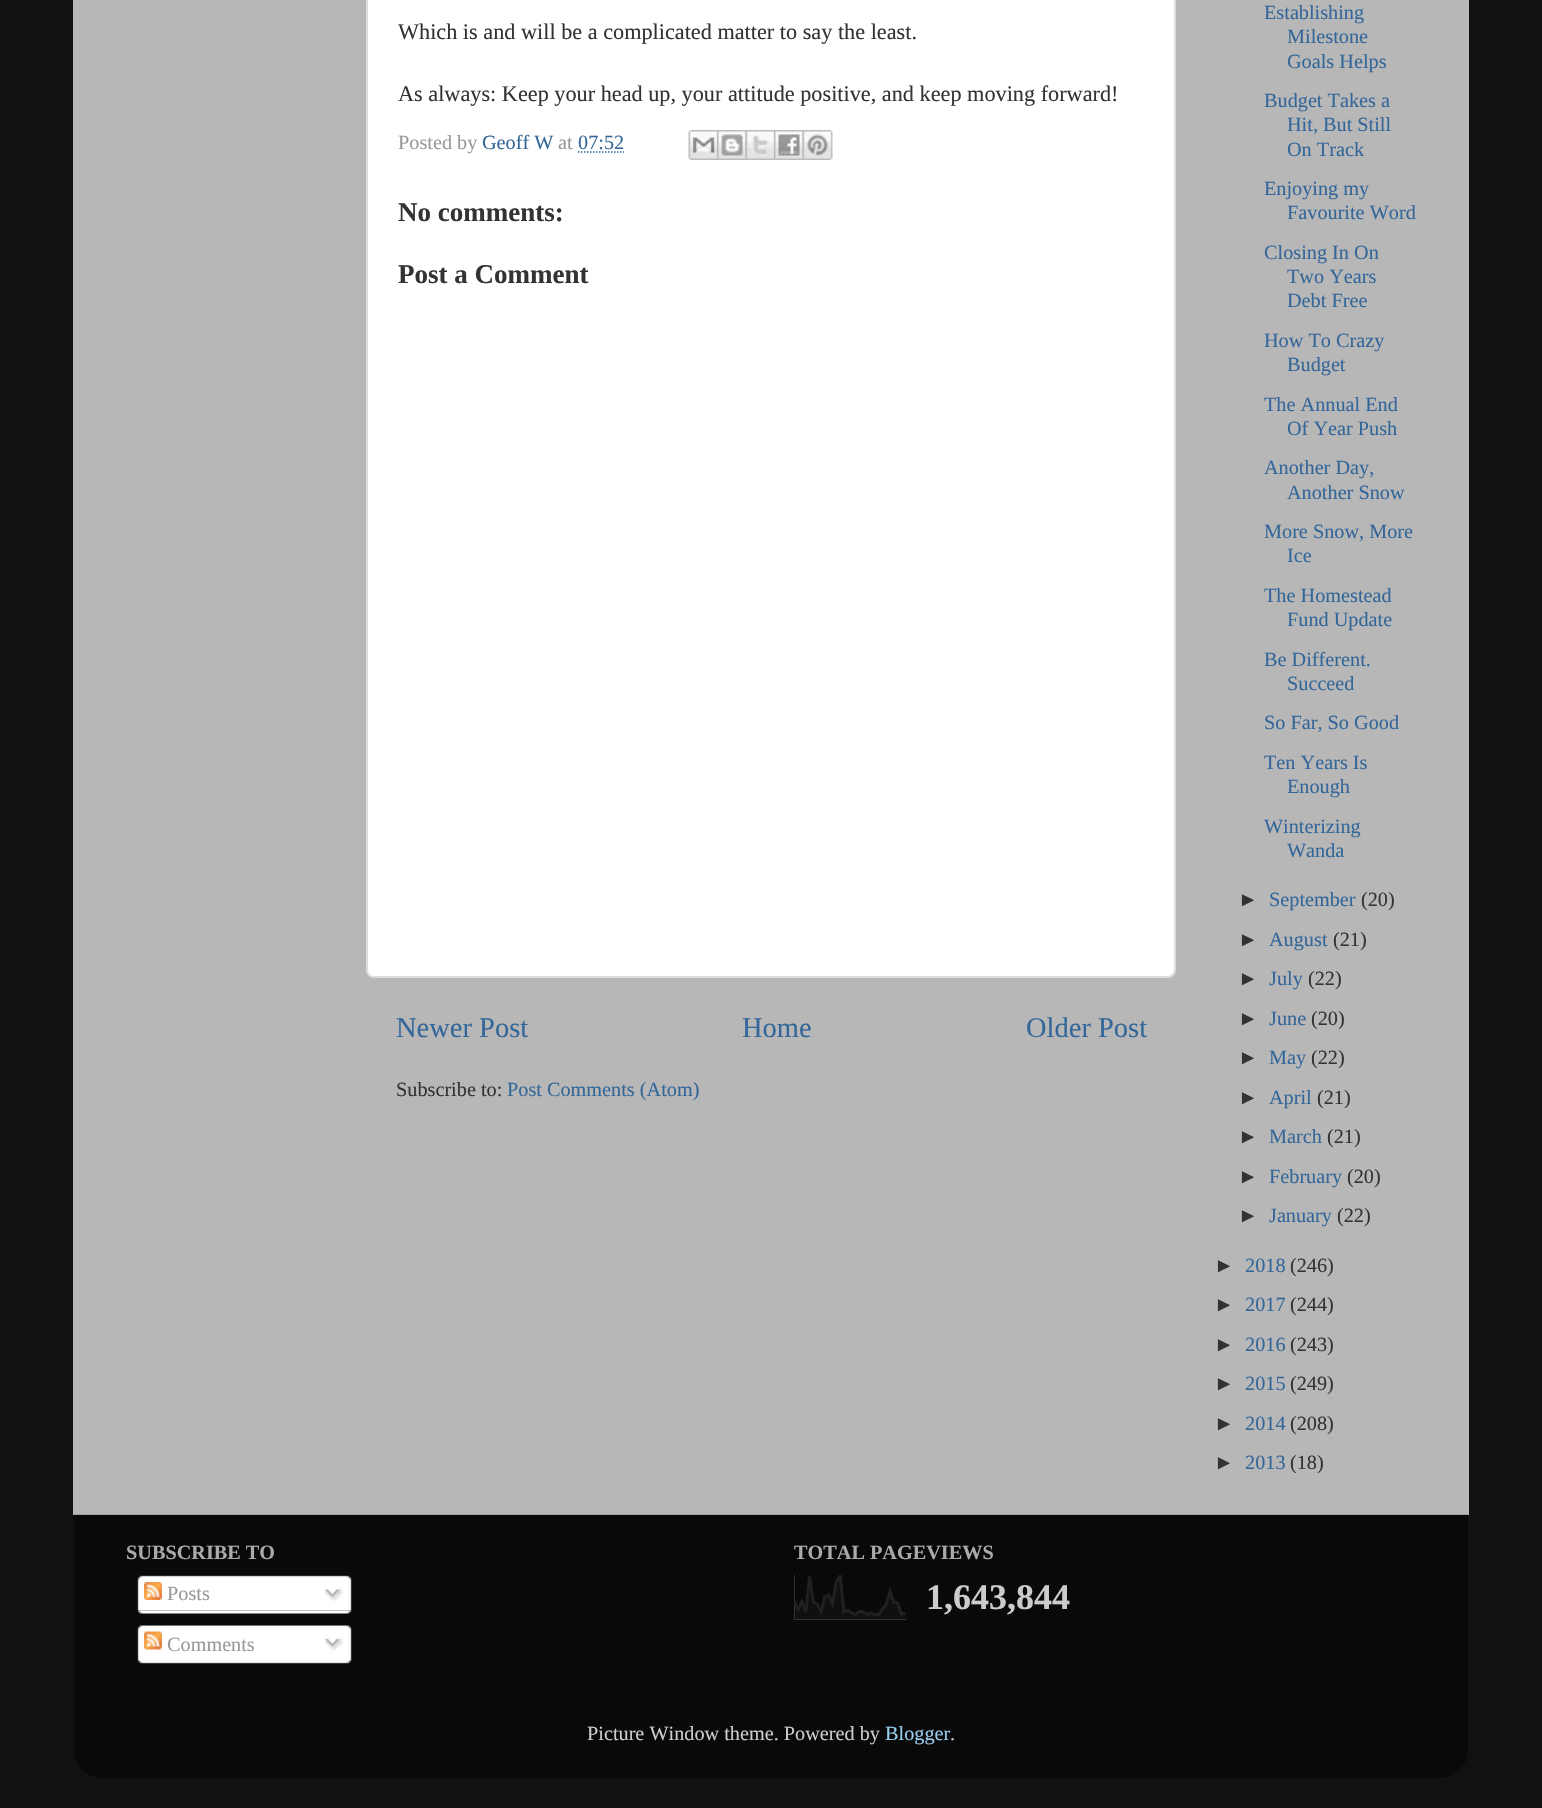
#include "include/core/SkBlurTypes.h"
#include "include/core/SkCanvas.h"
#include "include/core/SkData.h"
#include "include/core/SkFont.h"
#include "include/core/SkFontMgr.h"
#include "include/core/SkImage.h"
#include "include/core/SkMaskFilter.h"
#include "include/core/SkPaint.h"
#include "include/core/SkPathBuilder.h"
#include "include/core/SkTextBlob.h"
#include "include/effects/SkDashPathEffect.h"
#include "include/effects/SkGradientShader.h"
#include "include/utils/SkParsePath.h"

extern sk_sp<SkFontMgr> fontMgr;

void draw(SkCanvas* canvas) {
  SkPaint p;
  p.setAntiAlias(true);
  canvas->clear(SkColorSetRGB(17, 17, 17));
  p.setColor(SkColorSetRGB(183, 183, 183));
  canvas->drawRect(SkRect::MakeLTRB(73, 0, 1469, 1515), p);
  p.setColor(SK_ColorWHITE);
  canvas->drawRoundRect(SkRect::MakeLTRB(367, -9, 1175, 977), 7, 7, p);
  p.setStyle(SkPaint::kStroke_Style);
  p.setStrokeWidth(2);
  p.setColor(SkColorSetRGB(221, 221, 221));
  canvas->drawRoundRect(SkRect::MakeLTRB(367, -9, 1175, 977), 7, 7, p);
  p.setStrokeWidth(1.5f);
  p.setColor(SkColorSetRGB(51, 102, 153));
  p.setPathEffect(SkDashPathEffect::Make({{1.5f, 1.5f}}, 0));
  canvas->drawPath(SkPathBuilder().moveTo(578, 152).lineTo(624, 152).detach(), p);
  p.setPathEffect(nullptr);
  canvas->drawImageRect(SkImages::DeferredFromEncodedData(SkData::MakeFromFileName("images/1.png")), SkRect::MakeLTRB(688, 130, 717, 160), SkSamplingOptions());
  canvas->drawImageRect(SkImages::DeferredFromEncodedData(SkData::MakeFromFileName("images/2.png")), SkRect::MakeLTRB(717, 130, 746, 160), SkSamplingOptions());
  canvas->drawImageRect(SkImages::DeferredFromEncodedData(SkData::MakeFromFileName("images/3.png")), SkRect::MakeLTRB(745, 130, 774, 160), SkSamplingOptions());
  canvas->drawImageRect(SkImages::DeferredFromEncodedData(SkData::MakeFromFileName("images/4.png")), SkRect::MakeLTRB(774, 130, 803, 160), SkSamplingOptions());
  canvas->drawImageRect(SkImages::DeferredFromEncodedData(SkData::MakeFromFileName("images/5.png")), SkRect::MakeLTRB(802, 130, 833, 160), SkSamplingOptions());
  canvas->drawImageRect(SkImages::DeferredFromEncodedData(SkData::MakeFromFileName("images/6.png")), SkRect::MakeLTRB(73, 1514, 1469, 1778), SkSamplingOptions());
  canvas->drawImageRect(SkImages::DeferredFromEncodedData(SkData::MakeFromFileName("images/7.png")), SkRect::MakeLTRB(137, 1575, 352, 1611), SkSamplingOptions());
  canvas->drawImageRect(SkImages::DeferredFromEncodedData(SkData::MakeFromFileName("images/8.png")), SkRect::MakeLTRB(144, 1582, 162, 1600), SkSamplingOptions());
  canvas->drawImageRect(SkImages::DeferredFromEncodedData(SkData::MakeFromFileName("images/9.png")), SkRect::MakeLTRB(324, 1588, 344, 1602), SkSamplingOptions());
  canvas->drawImageRect(SkImages::DeferredFromEncodedData(SkData::MakeFromFileName("images/10.png")), SkRect::MakeLTRB(137, 1610, 352, 1614), SkSamplingOptions());
  canvas->drawImageRect(SkImages::DeferredFromEncodedData(SkData::MakeFromFileName("images/11.png")), SkRect::MakeLTRB(137, 1625, 352, 1660), SkSamplingOptions());
  canvas->drawImageRect(SkImages::DeferredFromEncodedData(SkData::MakeFromFileName("images/12.png")), SkRect::MakeLTRB(144, 1631, 162, 1650), SkSamplingOptions());
  canvas->drawImageRect(SkImages::DeferredFromEncodedData(SkData::MakeFromFileName("images/13.png")), SkRect::MakeLTRB(324, 1638, 344, 1651), SkSamplingOptions());
  canvas->drawImageRect(SkImages::DeferredFromEncodedData(SkData::MakeFromFileName("images/14.png")), SkRect::MakeLTRB(137, 1660, 352, 1664), SkSamplingOptions());
  canvas->drawImageRect(SkImages::DeferredFromEncodedData(SkData::MakeFromFileName("images/15.png")), SkRect::MakeLTRB(794, 1575, 906, 1620), SkSamplingOptions());
  SkFont font1(fontMgr->matchFamilyStyle("Liberation Serif", SkFontStyle::Normal()), 22.25f);
  font1.setSubpixel(true);
  p.setStyle(SkPaint::kFill_Style);
  p.setColor(SkColorSetRGB(51, 51, 51));
  canvas->drawString("Which is and will be a complicated matter to say the least.", 398, 39, font1, p);
  canvas->drawString("As always: Keep your head up, your attitude positive, and keep moving forward!", 398, 101, font1, p);
  SkFont font2(fontMgr->matchFamilyStyle("Liberation Serif", SkFontStyle::Normal()), 20.25f);
  font2.setSubpixel(true);
  p.setColor(SkColorSetRGB(153, 153, 153));
  canvas->drawString("Posted by", 398, 149, font2, p);
  p.setColor(SkColorSetRGB(51, 102, 153));
  canvas->drawString("Geoff W", 482, 149, font2, p);
  p.setColor(SkColorSetRGB(153, 153, 153));
  canvas->drawString("at", 558, 149, font2, p);
  p.setColor(SkColorSetRGB(51, 102, 153));
  canvas->drawString("07:52", 578, 149, font2, p);
  SkFont font3(fontMgr->matchFamilyStyle("Liberation Serif", SkFontStyle::Bold()), 27);
  font3.setSubpixel(true);
  p.setColor(SkColorSetRGB(51, 51, 51));
  canvas->drawString("No comments:", 398, 221, font3, p);
  canvas->drawString("Post a Comment", 398, 283, font3, p);
  SkFont font4(fontMgr->matchFamilyStyle("Liberation Serif", SkFontStyle::Normal()), 28.5f);
  font4.setSubpixel(true);
  p.setColor(SkColorSetRGB(51, 102, 153));
  canvas->drawString("Newer Post", 396, 1037, font4, p);
  canvas->drawString("Home", 742, 1037, font4, p);
  canvas->drawString("Older Post", 1026, 1037, font4, p);
  p.setColor(SkColorSetRGB(51, 51, 51));
  canvas->drawString("Subscribe to:", 396, 1096, font2, p);
  p.setColor(SkColorSetRGB(51, 102, 153));
  canvas->drawString("Post Comments (Atom)", 507, 1096, font2, p);
  canvas->drawString("Establishing", 1264, 19, font2, p);
  canvas->drawString("Milestone", 1287, 43, font2, p);
  canvas->drawString("Goals Helps", 1287, 68, font2, p);
  canvas->drawString("Budget Takes a", 1264, 107, font2, p);
  canvas->drawString("Hit, But Still", 1287, 131, font2, p);
  canvas->drawString("On Track", 1287, 156, font2, p);
  canvas->drawString("Enjoying my", 1264, 195, font2, p);
  canvas->drawString("Favourite Word", 1287, 219, font2, p);
  canvas->drawString("Closing In On", 1264, 259, font2, p);
  canvas->drawString("Two Years", 1287, 283, font2, p);
  canvas->drawString("Debt Free", 1287, 307, font2, p);
  canvas->drawString("How To Crazy", 1264, 347, font2, p);
  canvas->drawString("Budget", 1287, 371, font2, p);
  canvas->drawString("The Annual End", 1264, 411, font2, p);
  canvas->drawString("Of Year Push", 1287, 435, font2, p);
  canvas->drawString("Another Day,", 1264, 474, font2, p);
  canvas->drawString("Another Snow", 1287, 499, font2, p);
  canvas->drawString("More Snow, More", 1264, 538, font2, p);
  canvas->drawString("Ice", 1287, 562, font2, p);
  canvas->drawString("The Homestead", 1264, 602, font2, p);
  canvas->drawString("Fund Update", 1287, 626, font2, p);
  canvas->drawString("Be Different.", 1264, 666, font2, p);
  canvas->drawString("Succeed", 1287, 690, font2, p);
  canvas->drawString("So Far, So Good", 1264, 729, font2, p);
  canvas->drawString("Ten Years Is", 1264, 769, font2, p);
  canvas->drawString("Enough", 1287, 793, font2, p);
  canvas->drawString("Winterizing", 1264, 833, font2, p);
  canvas->drawString("Wanda", 1287, 857, font2, p);
  SkFont font5(fontMgr->matchFamilyStyle("Liberation Sans", SkFontStyle::Normal()), 20.25f);
  font5.setSubpixel(true);
  p.setColor(SkColorSetRGB(51, 51, 51));
  canvas->drawString("►", 1238, 906, font5, p);
  p.setColor(SkColorSetRGB(51, 102, 153));
  canvas->drawString("September", 1269, 906, font2, p);
  p.setColor(SkColorSetRGB(51, 51, 51));
  canvas->drawString("(20)", 1361, 906, font2, p);
  canvas->drawString("►", 1238, 946, font5, p);
  p.setColor(SkColorSetRGB(51, 102, 153));
  canvas->drawString("August", 1269, 946, font2, p);
  p.setColor(SkColorSetRGB(51, 51, 51));
  canvas->drawString("(21)", 1333, 946, font2, p);
  canvas->drawString("►", 1238, 985, font5, p);
  p.setColor(SkColorSetRGB(51, 102, 153));
  canvas->drawString("July", 1269, 985, font2, p);
  p.setColor(SkColorSetRGB(51, 51, 51));
  canvas->drawString("(22)", 1308, 985, font2, p);
  canvas->drawString("►", 1238, 1025, font5, p);
  p.setColor(SkColorSetRGB(51, 102, 153));
  canvas->drawString("June", 1269, 1025, font2, p);
  p.setColor(SkColorSetRGB(51, 51, 51));
  canvas->drawString("(20)", 1311, 1025, font2, p);
  canvas->drawString("►", 1238, 1064, font5, p);
  p.setColor(SkColorSetRGB(51, 102, 153));
  canvas->drawString("May", 1269, 1064, font2, p);
  p.setColor(SkColorSetRGB(51, 51, 51));
  canvas->drawString("(22)", 1311, 1064, font2, p);
  canvas->drawString("►", 1238, 1104, font5, p);
  p.setColor(SkColorSetRGB(51, 102, 153));
  canvas->drawString("April", 1269, 1104, font2, p);
  p.setColor(SkColorSetRGB(51, 51, 51));
  canvas->drawString("(21)", 1317, 1104, font2, p);
  canvas->drawString("►", 1238, 1143, font5, p);
  p.setColor(SkColorSetRGB(51, 102, 153));
  canvas->drawString("March", 1269, 1143, font2, p);
  p.setColor(SkColorSetRGB(51, 51, 51));
  canvas->drawString("(21)", 1327, 1143, font2, p);
  canvas->drawString("►", 1238, 1183, font5, p);
  p.setColor(SkColorSetRGB(51, 102, 153));
  canvas->drawString("February", 1269, 1183, font2, p);
  p.setColor(SkColorSetRGB(51, 51, 51));
  canvas->drawString("(20)", 1347, 1183, font2, p);
  canvas->drawString("►", 1238, 1222, font5, p);
  p.setColor(SkColorSetRGB(51, 102, 153));
  canvas->drawString("January", 1269, 1222, font2, p);
  p.setColor(SkColorSetRGB(51, 51, 51));
  canvas->drawString("(22)", 1337, 1222, font2, p);
  canvas->drawString("►", 1214, 1272, font5, p);
  p.setColor(SkColorSetRGB(51, 102, 153));
  canvas->drawString("2018", 1245, 1272, font2, p);
  p.setColor(SkColorSetRGB(51, 51, 51));
  canvas->drawString("(246)", 1290, 1272, font2, p);
  canvas->drawString("►", 1214, 1311, font5, p);
  p.setColor(SkColorSetRGB(51, 102, 153));
  canvas->drawString("2017", 1245, 1311, font2, p);
  p.setColor(SkColorSetRGB(51, 51, 51));
  canvas->drawString("(244)", 1290, 1311, font2, p);
  canvas->drawString("►", 1214, 1351, font5, p);
  p.setColor(SkColorSetRGB(51, 102, 153));
  canvas->drawString("2016", 1245, 1351, font2, p);
  p.setColor(SkColorSetRGB(51, 51, 51));
  canvas->drawString("(243)", 1290, 1351, font2, p);
  canvas->drawString("►", 1214, 1390, font5, p);
  p.setColor(SkColorSetRGB(51, 102, 153));
  canvas->drawString("2015", 1245, 1390, font2, p);
  p.setColor(SkColorSetRGB(51, 51, 51));
  canvas->drawString("(249)", 1290, 1390, font2, p);
  canvas->drawString("►", 1214, 1430, font5, p);
  p.setColor(SkColorSetRGB(51, 102, 153));
  canvas->drawString("2014", 1245, 1430, font2, p);
  p.setColor(SkColorSetRGB(51, 51, 51));
  canvas->drawString("(208)", 1290, 1430, font2, p);
  canvas->drawString("►", 1214, 1469, font5, p);
  p.setColor(SkColorSetRGB(51, 102, 153));
  canvas->drawString("2013", 1245, 1469, font2, p);
  p.setColor(SkColorSetRGB(51, 51, 51));
  canvas->drawString("(18)", 1290, 1469, font2, p);
  SkFont font6(fontMgr->matchFamilyStyle("Liberation Serif", SkFontStyle::Bold()), 20.25f);
  font6.setSubpixel(true);
  p.setColor(SkColorSetRGB(170, 170, 170));
  canvas->drawString("SUBSCRIBE TO", 126, 1559, font6, p);
  p.setColor(SkColorSetRGB(153, 153, 153));
  canvas->drawString("Posts", 167, 1600, font2, p);
  canvas->drawString("Comments", 167, 1651, font2, p);
  p.setColor(SkColorSetRGB(170, 170, 170));
  canvas->drawString("TOTAL PAGEVIEWS", 794, 1559, font6, p);
  SkFont font7(fontMgr->matchFamilyStyle("Liberation Serif", SkFontStyle::Bold()), 36);
  font7.setSubpixel(true);
  p.setColor(SkColorSetRGB(204, 204, 204));
  canvas->drawString("1,643,844", 926, 1609, font7, p);
  canvas->drawString("Picture Window theme. Powered by", 587, 1740, font2, p);
  p.setColor(SkColorSetRGB(153, 204, 238));
  canvas->drawString("Blogger", 885, 1740, font2, p);
  p.setColor(SkColorSetRGB(204, 204, 204));
  canvas->drawString(".", 950, 1740, font2, p);
}
